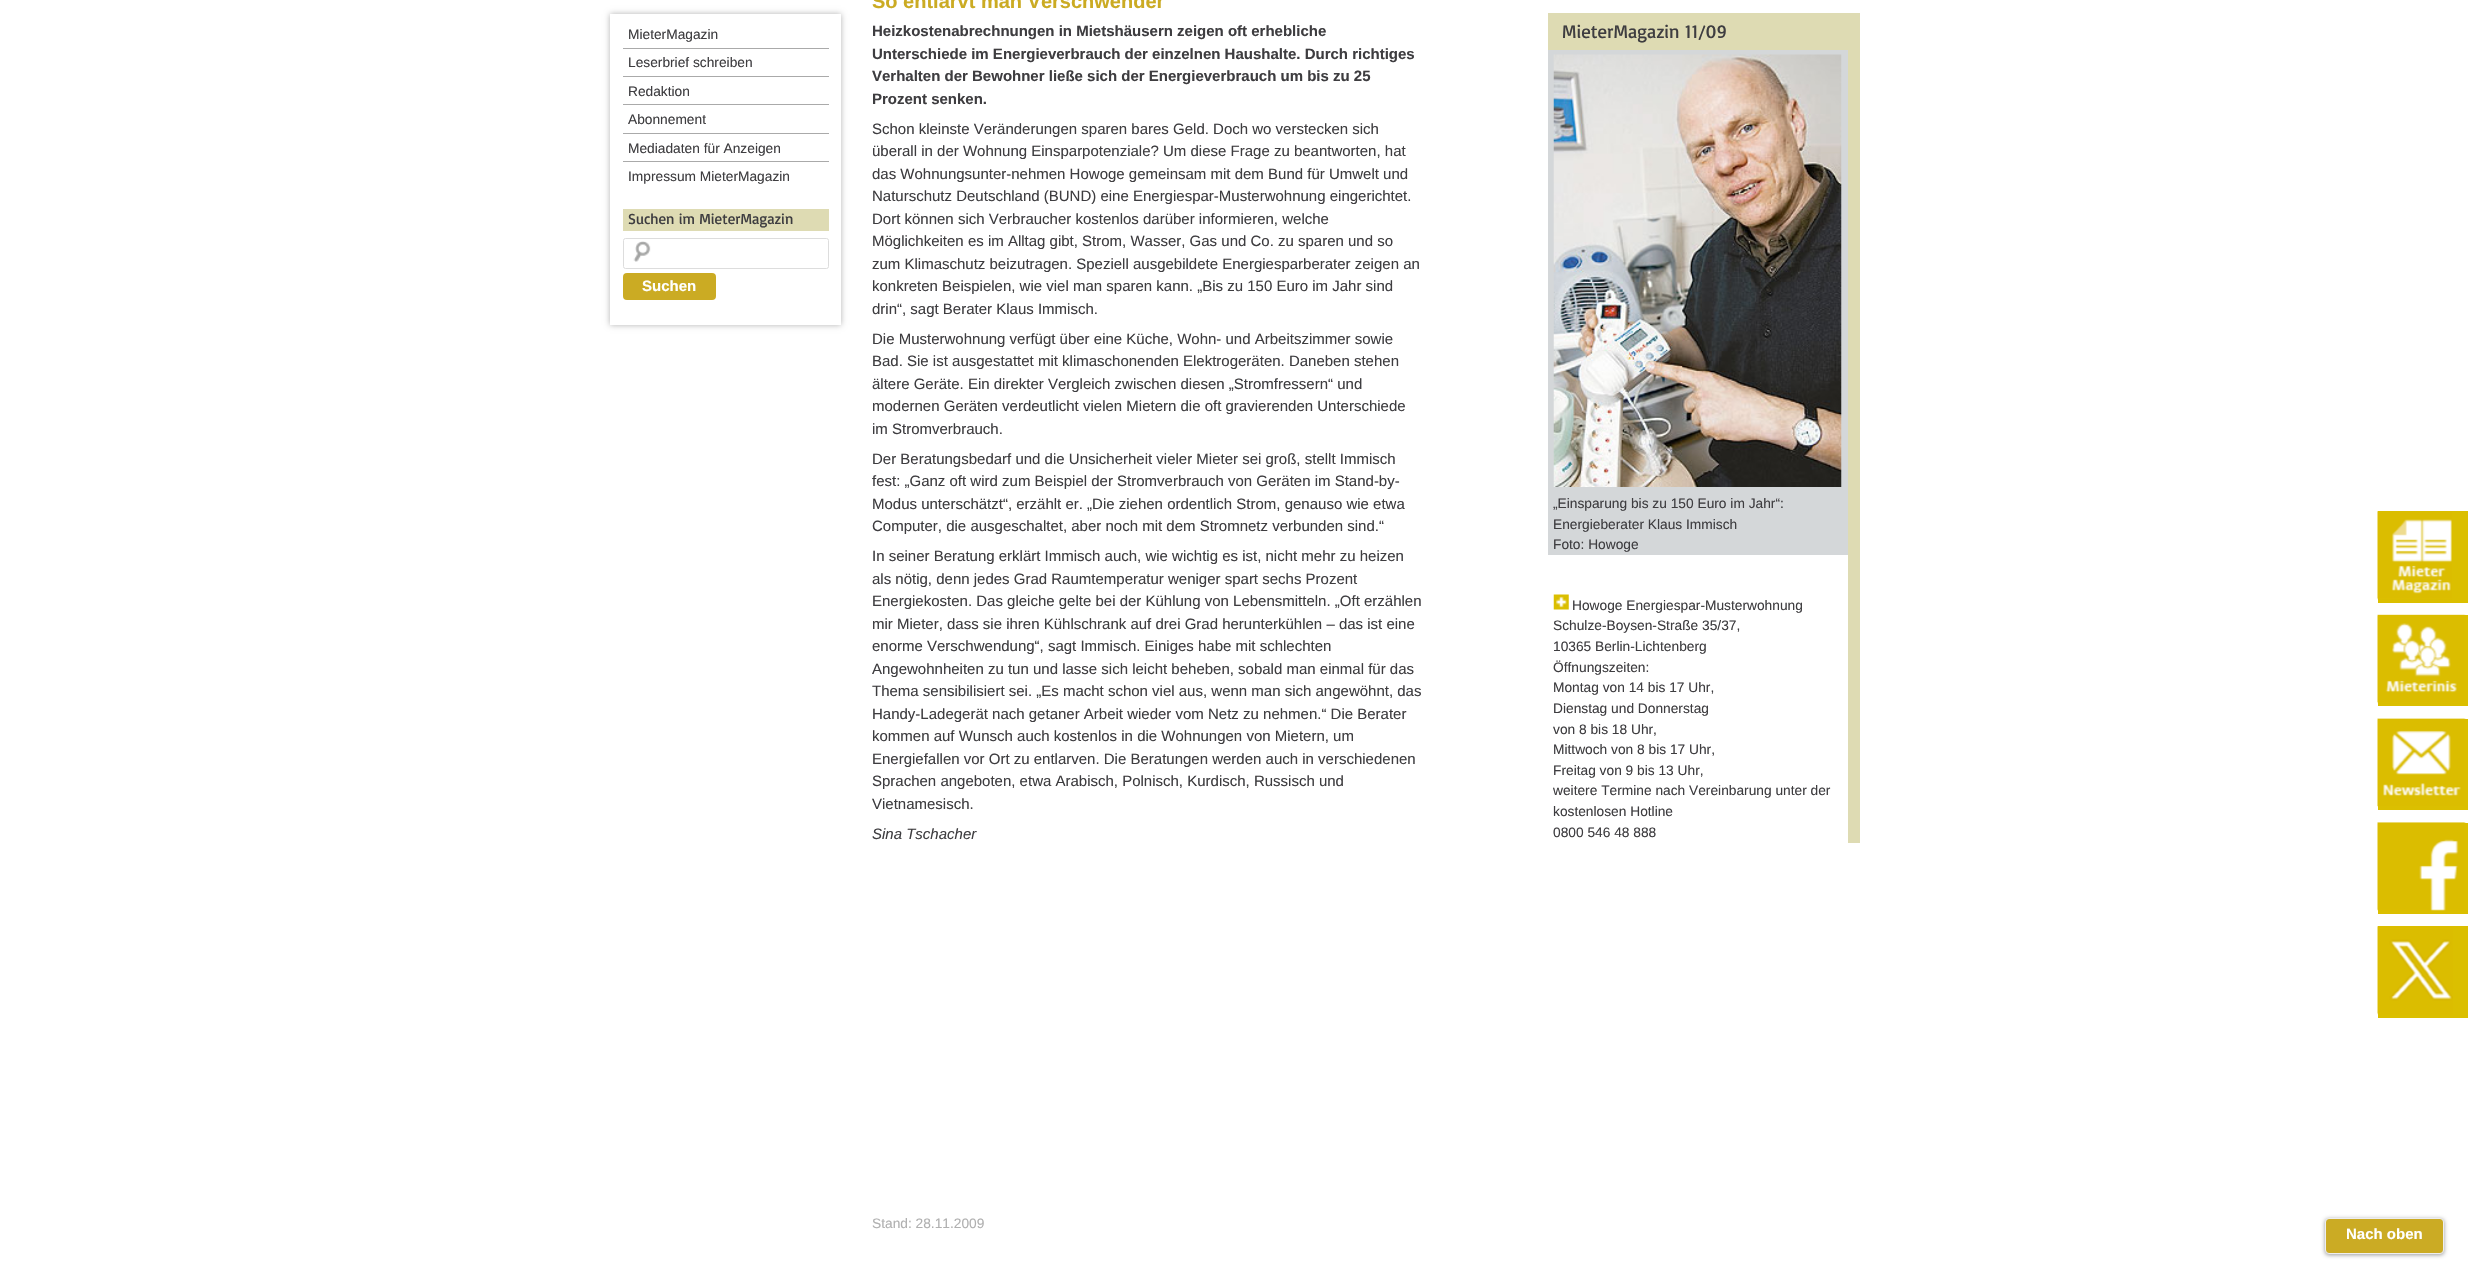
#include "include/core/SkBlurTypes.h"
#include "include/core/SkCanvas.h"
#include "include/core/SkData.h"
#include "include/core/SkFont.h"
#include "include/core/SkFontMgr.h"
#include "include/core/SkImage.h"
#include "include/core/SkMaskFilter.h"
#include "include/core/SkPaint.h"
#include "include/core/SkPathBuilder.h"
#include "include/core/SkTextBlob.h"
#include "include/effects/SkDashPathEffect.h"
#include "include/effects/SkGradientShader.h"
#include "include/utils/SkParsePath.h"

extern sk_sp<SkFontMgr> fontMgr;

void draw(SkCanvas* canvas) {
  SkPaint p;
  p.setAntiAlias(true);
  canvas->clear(SK_ColorWHITE);
  canvas->save();
  canvas->clipPath(SkPathBuilder(SkPathFillType::kEvenOdd).moveTo(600, 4).lineTo(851, 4).lineTo(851, 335).lineTo(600, 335).close().moveTo(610, 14).lineTo(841, 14).lineTo(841, 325).lineTo(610, 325).close().detach(), true);
  p.setColor(SkColorSetARGB(77, 0, 0, 0));
  p.setMaskFilter(SkMaskFilter::MakeBlur(kNormal_SkBlurStyle, 3));
  canvas->drawRect(SkRect::MakeLTRB(610, 14, 841, 325), p);
  p.setMaskFilter(nullptr);
  canvas->restore();
  p.setColor(SkColorSetRGB(170, 170, 170));
  canvas->drawRect(SkRect::MakeLTRB(623, 48, 829, 49), p);
  canvas->drawRect(SkRect::MakeLTRB(623, 76, 829, 77), p);
  canvas->drawRect(SkRect::MakeLTRB(623, 104, 829, 105), p);
  canvas->drawRect(SkRect::MakeLTRB(623, 133, 829, 134), p);
  canvas->drawRect(SkRect::MakeLTRB(623, 161, 829, 162), p);
  p.setColor(SkColorSetRGB(222, 219, 179));
  canvas->drawRect(SkRect::MakeLTRB(623, 209, 829, 231), p);
  canvas->drawImageRect(SkImages::DeferredFromEncodedData(SkData::MakeFromFileName("images/1.png")), SkRect::MakeLTRB(633, 241, 651, 262), SkSamplingOptions());
  p.setStyle(SkPaint::kStroke_Style);
  p.setStrokeWidth(1);
  p.setColor(SkColorSetRGB(221, 221, 221));
  canvas->drawRoundRect(SkRect::MakeLTRB(623.5f, 238.5f, 828.5f, 268.5f), 2, 2, p);
  p.setStyle(SkPaint::kFill_Style);
  p.setColor(SkColorSetRGB(203, 171, 35));
  canvas->drawRoundRect(SkRect::MakeLTRB(623, 273, 716, 300), 4, 4, p);
  p.setColor(SkColorSetRGB(222, 219, 179));
  canvas->drawRect(SkRect::MakeLTRB(1848, 13, 1860, 843), p);
  canvas->drawRect(SkRect::MakeLTRB(1548, 13, 1848, 50), p);
  p.setColor(SkColorSetRGB(212, 215, 217));
  canvas->drawRect(SkRect::MakeLTRB(1548, 50, 1848, 555), p);
  canvas->drawImageRect(SkImages::DeferredFromEncodedData(SkData::MakeFromFileName("images/2.png")), SkRect::MakeLTRB(1553, 54, 1842, 487), SkSamplingOptions());
  canvas->drawImageRect(SkImages::DeferredFromEncodedData(SkData::MakeFromFileName("images/3.png")), SkRect::MakeLTRB(1553, 594, 1569, 610), SkSamplingOptions());
  p.setColor(SkColorSetRGB(219, 191, 0));
  canvas->drawRect(SkRect::MakeLTRB(2378, 511, 2468, 603), p);
  canvas->drawImageRect(SkImages::DeferredFromEncodedData(SkData::MakeFromFileName("images/4.png")), SkRect::MakeLTRB(2377, 511, 2452, 600), SkSamplingOptions());
  canvas->drawRect(SkRect::MakeLTRB(2378, 615, 2468, 706), p);
  canvas->drawImageRect(SkImages::DeferredFromEncodedData(SkData::MakeFromFileName("images/5.png")), SkRect::MakeLTRB(2377, 614, 2466, 704), SkSamplingOptions());
  canvas->drawRect(SkRect::MakeLTRB(2378, 719, 2468, 810), p);
  canvas->drawImageRect(SkImages::DeferredFromEncodedData(SkData::MakeFromFileName("images/6.png")), SkRect::MakeLTRB(2377, 718, 2466, 807), SkSamplingOptions());
  canvas->drawRect(SkRect::MakeLTRB(2378, 823, 2468, 914), p);
  canvas->drawImageRect(SkImages::DeferredFromEncodedData(SkData::MakeFromFileName("images/7.png")), SkRect::MakeLTRB(2377, 822, 2466, 911), SkSamplingOptions());
  canvas->drawRect(SkRect::MakeLTRB(2378, 926, 2468, 1018), p);
  canvas->drawImageRect(SkImages::DeferredFromEncodedData(SkData::MakeFromFileName("images/8.png")), SkRect::MakeLTRB(2377, 926, 2453, 1015), SkSamplingOptions());
  p.setColor(SkColorSetARGB(102, 1, 1, 1));
  p.setMaskFilter(SkMaskFilter::MakeBlur(kNormal_SkBlurStyle, 2));
  canvas->drawRoundRect(SkRect::MakeLTRB(2325, 1219, 2444, 1255), 4, 4, p);
  p.setMaskFilter(nullptr);
  p.setColor(SkColorSetRGB(203, 171, 36));
  canvas->drawRoundRect(SkRect::MakeLTRB(2326, 1219, 2443, 1253), 2.5f, 2.5f, p);
  p.setStyle(SkPaint::kStroke_Style);
  p.setColor(SkColorSetRGB(238, 238, 238));
  canvas->drawRoundRect(SkRect::MakeLTRB(2325.5f, 1218.5f, 2443.5f, 1253.5f), 3.5f, 3.5f, p);
  SkFont font1(fontMgr->matchFamilyStyle("Liberation Sans", SkFontStyle::Normal()), 13.75f);
  font1.setSubpixel(true);
  p.setStyle(SkPaint::kFill_Style);
  p.setColor(SkColorSetRGB(62, 61, 64));
  canvas->drawString("MieterMagazin", 628, 39, font1, p);
  canvas->drawString("Leserbrief schreiben", 628, 67, font1, p);
  canvas->drawString("Redaktion", 628, 96, font1, p);
  canvas->drawString("Abonnement", 628, 124, font1, p);
  canvas->drawString("Mediadaten für Anzeigen", 628, 153, font1, p);
  canvas->drawString("Impressum MieterMagazin", 628, 181, font1, p);
  SkFont font2(fontMgr->matchFamilyStyle("Basic", SkFontStyle::Normal()), 15);
  font2.setSubpixel(true);
  canvas->drawString("Suchen im MieterMagazin", 628, 224, font2, p);
  SkFont font3(fontMgr->matchFamilyStyle("Liberation Sans", SkFontStyle::Bold()), 15);
  font3.setSubpixel(true);
  p.setColor(SK_ColorWHITE);
  canvas->drawString("Suchen", 642, 291, font3, p);
  SkFont font4(fontMgr->matchFamilyStyle("Liberation Sans", SkFontStyle::Bold()), 20);
  font4.setSubpixel(true);
  p.setColor(SkColorSetRGB(203, 171, 35));
  canvas->drawString("So entlarvt man Verschwender", 872, 8, font4, p);
  p.setColor(SkColorSetRGB(62, 61, 64));
  canvas->drawString("Heizkostenabrechnungen in Mietshäusern zeigen oft erhebliche", 872, 36, font3, p);
  canvas->drawString("Unterschiede im Energieverbrauch der einzelnen Haushalte. Durch richtiges", 872, 59, font3, p);
  canvas->drawString("Verhalten der Bewohner ließe sich der Energieverbrauch um bis zu 25", 872, 81, font3, p);
  canvas->drawString("Prozent senken.", 872, 104, font3, p);
  SkFont font5(fontMgr->matchFamilyStyle("Liberation Sans", SkFontStyle::Normal()), 15);
  font5.setSubpixel(true);
  canvas->drawString("Schon kleinste Veränderungen sparen bares Geld. Doch wo verstecken sich", 872, 134, font5, p);
  canvas->drawString("überall in der Wohnung Einsparpotenziale? Um diese Frage zu beantworten, hat", 872, 156, font5, p);
  canvas->drawString("das Wohnungsunter-nehmen Howoge gemeinsam mit dem Bund für Umwelt und", 872, 179, font5, p);
  canvas->drawString("Naturschutz Deutschland (BUND) eine Energiespar-Musterwohnung eingerichtet.", 872, 201, font5, p);
  canvas->drawString("Dort können sich Verbraucher kostenlos darüber informieren, welche", 872, 224, font5, p);
  canvas->drawString("Möglichkeiten es im Alltag gibt, Strom, Wasser, Gas und Co. zu sparen und so", 872, 246, font5, p);
  canvas->drawString("zum Klimaschutz beizutragen. Speziell ausgebildete Energiesparberater zeigen an", 872, 269, font5, p);
  canvas->drawString("konkreten Beispielen, wie viel man sparen kann. „Bis zu 150 Euro im Jahr sind", 872, 291, font5, p);
  canvas->drawString("drin“, sagt Berater Klaus Immisch.", 872, 314, font5, p);
  canvas->drawString("Die Musterwohnung verfügt über eine Küche, Wohn- und Arbeitszimmer sowie", 872, 344, font5, p);
  canvas->drawString("Bad. Sie ist ausgestattet mit klimaschonenden Elektrogeräten. Daneben stehen", 872, 366, font5, p);
  canvas->drawString("ältere Geräte. Ein direkter Vergleich zwischen diesen „Stromfressern“ und", 872, 389, font5, p);
  canvas->drawString("modernen Geräten verdeutlicht vielen Mietern die oft gravierenden Unterschiede", 872, 411, font5, p);
  canvas->drawString("im Stromverbrauch.", 872, 434, font5, p);
  canvas->drawString("Der Beratungsbedarf und die Unsicherheit vieler Mieter sei groß, stellt Immisch", 872, 464, font5, p);
  canvas->drawString("fest: „Ganz oft wird zum Beispiel der Stromverbrauch von Geräten im Stand-by-", 872, 486, font5, p);
  canvas->drawString("Modus unterschätzt“, erzählt er. „Die ziehen ordentlich Strom, genauso wie etwa", 872, 509, font5, p);
  canvas->drawString("Computer, die ausgeschaltet, aber noch mit dem Stromnetz verbunden sind.“", 872, 531, font5, p);
  canvas->drawString("In seiner Beratung erklärt Immisch auch, wie wichtig es ist, nicht mehr zu heizen", 872, 561, font5, p);
  canvas->drawString("als nötig, denn jedes Grad Raumtemperatur weniger spart sechs Prozent", 872, 584, font5, p);
  canvas->drawString("Energiekosten. Das gleiche gelte bei der Kühlung von Lebensmitteln. „Oft erzählen", 872, 606, font5, p);
  canvas->drawString("mir Mieter, dass sie ihren Kühlschrank auf drei Grad herunterkühlen – das ist eine", 872, 629, font5, p);
  canvas->drawString("enorme Verschwendung“, sagt Immisch. Einiges habe mit schlechten", 872, 651, font5, p);
  canvas->drawString("Angewohnheiten zu tun und lasse sich leicht beheben, sobald man einmal für das", 872, 674, font5, p);
  canvas->drawString("Thema sensibilisiert sei. „Es macht schon viel aus, wenn man sich angewöhnt, das", 872, 696, font5, p);
  canvas->drawString("Handy-Ladegerät nach getaner Arbeit wieder vom Netz zu nehmen.“ Die Berater", 872, 719, font5, p);
  canvas->drawString("kommen auf Wunsch auch kostenlos in die Wohnungen von Mietern, um", 872, 741, font5, p);
  canvas->drawString("Energiefallen vor Ort zu entlarven. Die Beratungen werden auch in verschiedenen", 872, 764, font5, p);
  canvas->drawString("Sprachen angeboten, etwa Arabisch, Polnisch, Kurdisch, Russisch und", 872, 786, font5, p);
  canvas->drawString("Vietnamesisch.", 872, 809, font5, p);
  SkFont font6(fontMgr->matchFamilyStyle("Liberation Sans", SkFontStyle::Italic()), 15);
  font6.setSubpixel(true);
  canvas->drawString("Sina Tschacher", 872, 839, font6, p);
  SkFont font7(fontMgr->matchFamilyStyle("Basic", SkFontStyle::Normal()), 18.75f);
  font7.setSubpixel(true);
  canvas->drawString("MieterMagazin 11/09", 1562, 38, font7, p);
  canvas->drawString("„Einsparung bis zu 150 Euro im Jahr“:", 1553, 508, font1, p);
  canvas->drawString("Energieberater Klaus Immisch", 1553, 529, font1, p);
  canvas->drawString("Foto: Howoge", 1553, 549, font1, p);
  canvas->drawString("Howoge Energiespar-Musterwohnung", 1572, 610, font1, p);
  canvas->drawString("Schulze-Boysen-Straße 35/37,", 1553, 630, font1, p);
  canvas->drawString("10365 Berlin-Lichtenberg", 1553, 651, font1, p);
  canvas->drawString("Öffnungszeiten:", 1553, 672, font1, p);
  canvas->drawString("Montag von 14 bis 17 Uhr,", 1553, 692, font1, p);
  canvas->drawString("Dienstag und Donnerstag", 1553, 713, font1, p);
  canvas->drawString("von 8 bis 18 Uhr,", 1553, 734, font1, p);
  canvas->drawString("Mittwoch von 8 bis 17 Uhr,", 1553, 754, font1, p);
  canvas->drawString("Freitag von 9 bis 13 Uhr,", 1553, 775, font1, p);
  canvas->drawString("weitere Termine nach Vereinbarung unter der", 1553, 795, font1, p);
  canvas->drawString("kostenlosen Hotline", 1553, 816, font1, p);
  canvas->drawString("0800 546 48 888", 1553, 837, font1, p);
  p.setColor(SkColorSetRGB(176, 176, 176));
  canvas->drawString("Stand: 28.11.2009", 872, 1228, font1, p);
  p.setColor(SK_ColorWHITE);
  canvas->drawString("Nach oben", 2346, 1239, font3, p);
}
